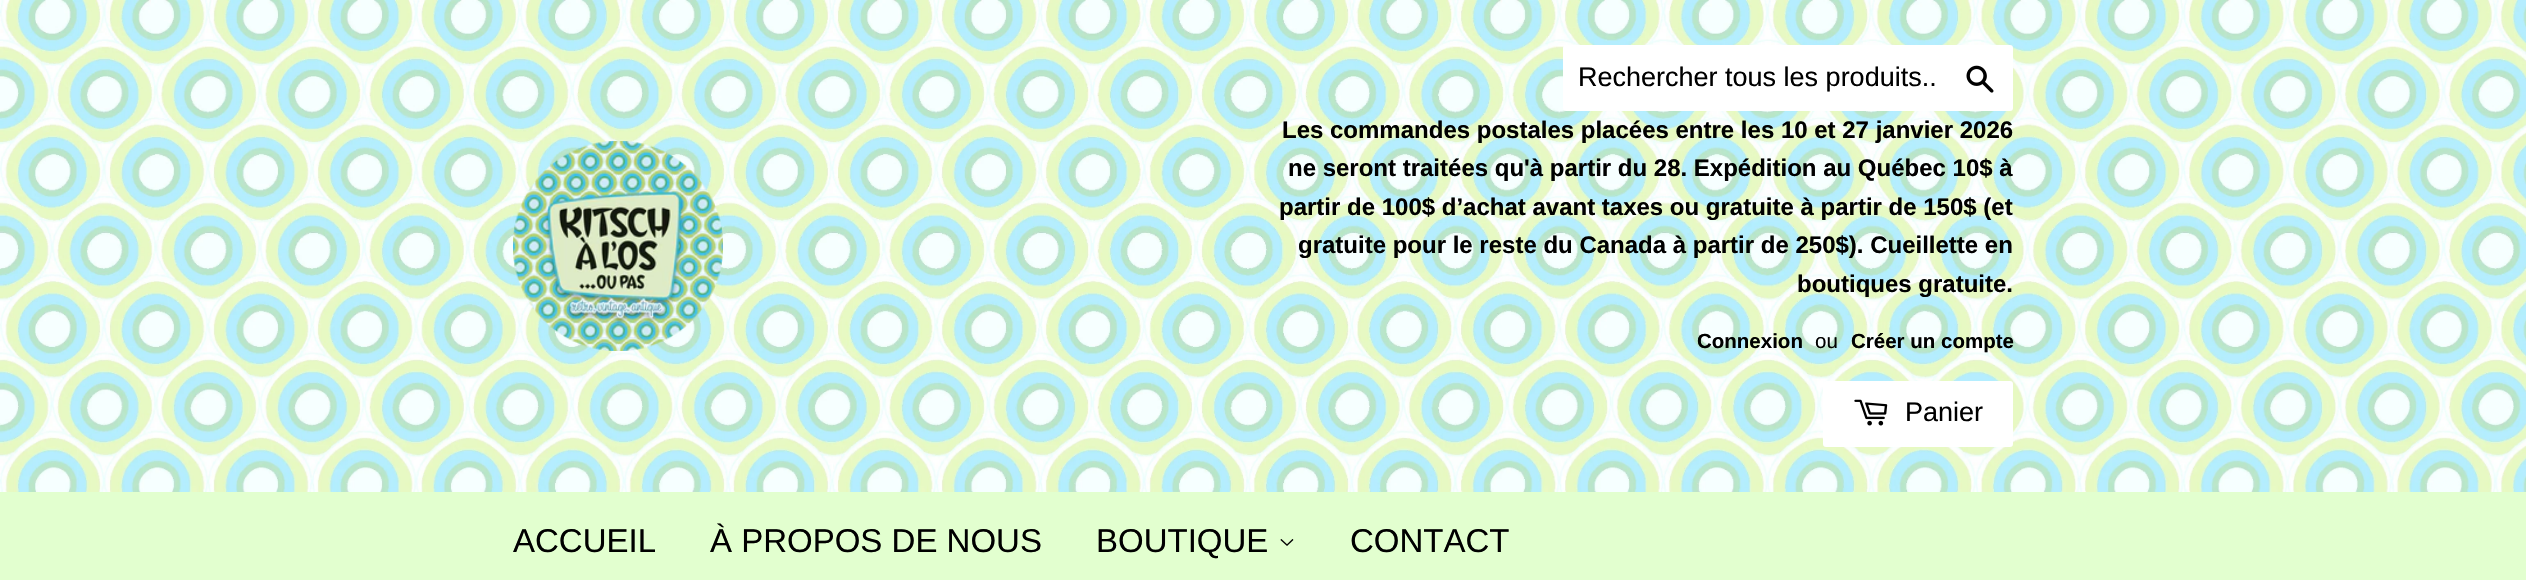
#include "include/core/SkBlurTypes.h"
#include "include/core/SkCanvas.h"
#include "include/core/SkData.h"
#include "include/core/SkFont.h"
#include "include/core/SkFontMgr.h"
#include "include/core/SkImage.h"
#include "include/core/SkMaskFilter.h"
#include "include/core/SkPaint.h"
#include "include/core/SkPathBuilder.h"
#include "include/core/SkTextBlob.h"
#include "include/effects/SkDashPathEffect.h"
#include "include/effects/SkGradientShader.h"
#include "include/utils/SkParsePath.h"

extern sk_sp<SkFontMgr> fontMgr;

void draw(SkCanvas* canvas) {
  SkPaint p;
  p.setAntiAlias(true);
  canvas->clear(SK_ColorWHITE);
  canvas->drawImageRect(SkImages::DeferredFromEncodedData(SkData::MakeFromFileName("images/1.png")), SkRect::MakeLTRB(0, 0, 2526, 492), SkSamplingOptions());
  canvas->drawImageRect(SkImages::DeferredFromEncodedData(SkData::MakeFromFileName("images/2.png")), SkRect::MakeLTRB(513, 141, 723, 351), SkSamplingOptions());
  p.setColor(SK_ColorWHITE);
  canvas->drawRoundRect(SkRect::MakeLTRB(1563, 45, 2013, 111), 3, 3, p);
  canvas->drawImageRect(SkImages::DeferredFromEncodedData(SkData::MakeFromFileName("images/3.png")), SkRect::MakeLTRB(1966, 65, 1994, 93), SkSamplingOptions());
  canvas->drawRoundRect(SkRect::MakeLTRB(1823, 381, 2013, 447), 3, 3, p);
  canvas->drawImageRect(SkImages::DeferredFromEncodedData(SkData::MakeFromFileName("images/4.png")), SkRect::MakeLTRB(1854, 399, 1888, 426), SkSamplingOptions());
  p.setColor(SkColorSetRGB(226, 255, 207));
  canvas->drawRect(SkRect::MakeLTRB(0, 492, 2526, 580), p);
  canvas->drawImageRect(SkImages::DeferredFromEncodedData(SkData::MakeFromFileName("images/5.png")), SkRect::MakeLTRB(1280, 539, 1294, 546), SkSamplingOptions());
  SkFont font1(fontMgr->matchFamilyStyle("Liberation Sans", SkFontStyle::Normal()), 27);
  font1.setSubpixel(true);
  p.setColor(SK_ColorBLACK);
  canvas->drawString("Rechercher tous les produits..", 1578, 86, font1, p);
  SkFont font2(fontMgr->matchFamilyStyle("Liberation Sans", SkFontStyle::Bold()), 24);
  font2.setSubpixel(true);
  canvas->drawString("Les commandes postales placées entre les 10 et 27 janvier 2026", 1282, 138, font2, p);
  canvas->drawString("ne seront traitées qu'à partir du 28. Expédition au Québec 10$ à", 1288, 176, font2, p);
  canvas->drawString("partir de 100$ d’achat avant taxes ou gratuite à partir de 150$ (et", 1279, 215, font2, p);
  canvas->drawString("gratuite pour le reste du Canada à partir de 250$). Cueillette en", 1298, 253, font2, p);
  canvas->drawString("boutiques gratuite.", 1797, 292, font2, p);
  SkFont font3(fontMgr->matchFamilyStyle("Liberation Sans", SkFontStyle::Bold()), 20.5f);
  font3.setSubpixel(true);
  canvas->drawString("Connexion", 1697, 348, font3, p);
  SkFont font4(fontMgr->matchFamilyStyle("Liberation Sans", SkFontStyle::Normal()), 20.5f);
  font4.setSubpixel(true);
  canvas->drawString("ou", 1815, 348, font4, p);
  canvas->drawString("Créer un compte", 1851, 348, font3, p);
  canvas->drawString("Panier", 1905, 421, font1, p);
  SkFont font5(fontMgr->matchFamilyStyle("Liberation Sans", SkFontStyle::Normal()), 33);
  font5.setSubpixel(true);
  canvas->drawString("ACCUEIL", 513, 552, font5, p);
  canvas->drawString("À PROPOS DE NOUS", 710, 552, font5, p);
  canvas->drawString("BOUTIQUE", 1096, 552, font5, p);
  canvas->drawString("CONTACT", 1350, 552, font5, p);
}
